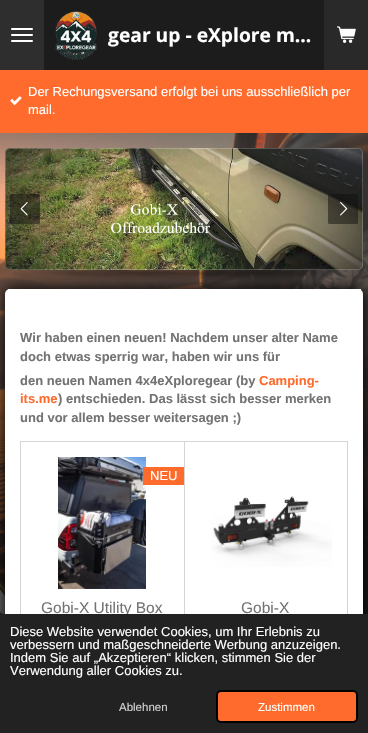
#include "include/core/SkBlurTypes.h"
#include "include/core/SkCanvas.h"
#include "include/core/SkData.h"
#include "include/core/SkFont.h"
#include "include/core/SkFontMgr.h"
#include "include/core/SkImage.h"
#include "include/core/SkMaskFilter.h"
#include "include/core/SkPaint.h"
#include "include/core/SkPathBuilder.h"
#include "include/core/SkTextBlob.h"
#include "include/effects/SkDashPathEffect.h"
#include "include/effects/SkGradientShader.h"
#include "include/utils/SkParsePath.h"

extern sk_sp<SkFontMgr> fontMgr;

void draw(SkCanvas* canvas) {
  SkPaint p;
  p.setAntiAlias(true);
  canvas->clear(SK_ColorWHITE);
  p.setColor(SkColorSetRGB(46, 46, 46));
  canvas->drawRect(SkRect::MakeLTRB(0, 0, 44, 70), p);
  p.setColor(SK_ColorWHITE);
  canvas->drawRoundRect(SkRect::MakeLTRB(11, 34, 33, 36), 1, 1, p);
  canvas->drawRoundRect(SkRect::MakeLTRB(11, 28, 33, 30), 1, 1, p);
  canvas->drawRoundRect(SkRect::MakeLTRB(11, 40, 33, 42), 1, 1, p);
  p.setColor(SkColorSetRGB(28, 28, 28));
  canvas->drawRect(SkRect::MakeLTRB(44, 0, 324, 70), p);
  canvas->drawImageRect(SkImages::DeferredFromEncodedData(SkData::MakeFromFileName("images/1.png")), SkRect::MakeLTRB(55, 11, 97, 60), SkSamplingOptions());
  p.setColor(SkColorSetRGB(41, 41, 41));
  canvas->drawRect(SkRect::MakeLTRB(324, 0, 368, 70), p);
  canvas->drawImageRect(SkImages::DeferredFromEncodedData(SkData::MakeFromFileName("images/2.png")), SkRect::MakeLTRB(337, 26, 356, 43), SkSamplingOptions());
  p.setColor(SkColorSetRGB(255, 107, 44));
  canvas->drawRect(SkRect::MakeLTRB(0, 70, 368, 133), p);
  canvas->drawImageRect(SkImages::DeferredFromEncodedData(SkData::MakeFromFileName("images/3.png")), SkRect::MakeLTRB(10, 96, 22, 105), SkSamplingOptions());
  canvas->drawImageRect(SkImages::DeferredFromEncodedData(SkData::MakeFromFileName("images/10.png")), SkRect::MakeLTRB(0, 133, 368, 614), SkSamplingOptions());
  {
    const SkColor colors[] = {SkColorSetARGB(0, 0, 0, 0), SkColorSetARGB(153, 0, 0, 0)};
    const float stops[] = {0, 1};
    const SkPoint ends[] = {{184, 190}, {184, 20}};
    p.setShader(SkGradientShader::MakeLinear(ends, colors, stops, 2, SkTileMode::kClamp));
    p.setAlpha(255);
  }
  canvas->drawRect(SkRect::MakeLTRB(0, 133, 368, 184), p);
  {
    const SkColor colors[] = {SkColorSetARGB(153, 0, 0, 0), SkColorSetARGB(0, 0, 0, 0)};
    const float stops[] = {0, 1};
    const SkPoint ends[] = {{184, 560}, {184, 310}};
    p.setShader(SkGradientShader::MakeLinear(ends, colors, stops, 2, SkTileMode::kClamp));
    p.setAlpha(255);
  }
  canvas->drawRect(SkRect::MakeLTRB(0, 319, 368, 560), p);
  p.setShader(nullptr);
  p.setColor(SkColorSetARGB(153, 0, 0, 0));
  canvas->drawRect(SkRect::MakeLTRB(0, 560, 368, 614), p);
  canvas->drawImageRect(SkImages::DeferredFromEncodedData(SkData::MakeFromFileName("images/4.png")), SkRect::MakeLTRB(5, 148, 363, 270), SkSamplingOptions());
  p.setStyle(SkPaint::kStroke_Style);
  p.setStrokeWidth(1);
  p.setColor(SkColorSetARGB(51, 255, 255, 255));
  canvas->drawRoundRect(SkRect::MakeLTRB(5.5f, 148.5f, 362.5f, 269.5f), 4.5f, 4.5f, p);
  p.setStyle(SkPaint::kFill_Style);
  p.setColor(SkColorSetARGB(128, 15, 15, 15));
  canvas->drawRoundRect(SkRect::MakeLTRB(10, 194, 40, 224), 1.5f, 1.5f, p);
  canvas->drawImageRect(SkImages::DeferredFromEncodedData(SkData::MakeFromFileName("images/5.png")), SkRect::MakeLTRB(20, 202, 28, 216), SkSamplingOptions());
  canvas->drawRoundRect(SkRect::MakeLTRB(328, 194, 358, 224), 1.5f, 1.5f, p);
  canvas->drawImageRect(SkImages::DeferredFromEncodedData(SkData::MakeFromFileName("images/6.png")), SkRect::MakeLTRB(340, 202, 348, 216), SkSamplingOptions());
  canvas->drawImageRect(SkImages::DeferredFromEncodedData(SkData::MakeFromFileName("images/7.png")), SkRect::MakeLTRB(14, 270, 351, 281), SkSamplingOptions());
  p.setColor(SK_ColorBLACK);
  p.setMaskFilter(SkMaskFilter::MakeBlur(kNormal_SkBlurStyle, 7.5f));
  canvas->drawRoundRect(SkRect::MakeLTRB(5, 289, 363, 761), 5, 5, p);
  p.setMaskFilter(nullptr);
  p.setColor(SK_ColorWHITE);
  canvas->drawRoundRect(SkRect::MakeLTRB(5, 289, 363, 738), 5, 5, p);
  canvas->drawRect(SkRect::MakeLTRB(8, 289, 361, 290), p);
  p.setStyle(SkPaint::kStroke_Style);
  p.setColor(SkColorSetRGB(213, 213, 213));
  canvas->drawRect(SkRect::MakeLTRB(20.5f, 441.5f, 184.5f, 728.5f), p);
  canvas->drawImageRect(SkImages::DeferredFromEncodedData(SkData::MakeFromFileName("images/8.png")), SkRect::MakeLTRB(58, 457, 146, 589), SkSamplingOptions());
  p.setStyle(SkPaint::kFill_Style);
  p.setColor(SkColorSetRGB(255, 107, 44));
  canvas->drawRect(SkRect::MakeLTRB(143, 467, 184, 485), p);
  p.setStyle(SkPaint::kStroke_Style);
  p.setColor(SkColorSetRGB(213, 213, 213));
  canvas->drawRect(SkRect::MakeLTRB(184.5f, 441.5f, 347.5f, 728.5f), p);
  canvas->drawImageRect(SkImages::DeferredFromEncodedData(SkData::MakeFromFileName("images/9.png")), SkRect::MakeLTRB(211, 496, 332, 567), SkSamplingOptions());
  SkFont font1(fontMgr->matchFamilyStyle("Open Sans", SkFontStyle::Bold()), 19.25f);
  font1.setSubpixel(true);
  p.setStyle(SkPaint::kFill_Style);
  p.setColor(SK_ColorWHITE);
  canvas->drawString("gear up - eXplore m…", 108, 42, font1, p);
  SkFont font2(fontMgr->matchFamilyStyle("Liberation Sans", SkFontStyle::Normal()), 13);
  font2.setSubpixel(true);
  canvas->drawString("Der Rechungsversand erfolgt bei uns ausschließlich per", 28, 96, font2, p);
  canvas->drawString("mail.", 28, 114, font2, p);
  SkFont font3(fontMgr->matchFamilyStyle("Liberation Sans", SkFontStyle::Bold()), 13);
  font3.setSubpixel(true);
  p.setColor(SkColorSetRGB(115, 115, 115));
  canvas->drawString("Wir haben einen neuen! Nachdem unser alter Name", 20, 342, font3, p);
  canvas->drawString("doch etwas sperrig war, haben wir uns für", 20, 361, font3, p);
  canvas->drawString("den neuen Namen 4x4eXploregear (by", 20, 385, font3, p);
  p.setColor(SkColorSetRGB(255, 107, 44));
  canvas->drawString("Camping-", 259, 385, font3, p);
  canvas->drawString("its.me", 20, 403, font3, p);
  p.setColor(SkColorSetRGB(115, 115, 115));
  canvas->drawString(") entschieden. Das lässt sich besser merken", 58, 403, font3, p);
  canvas->drawString("und vor allem besser weitersagen ;)", 20, 422, font3, p);
  p.setColor(SK_ColorWHITE);
  canvas->drawString("NEU", 150, 480, font2, p);
  SkFont font4(fontMgr->matchFamilyStyle("Liberation Sans", SkFontStyle::Normal()), 15.5f);
  font4.setSubpixel(true);
  p.setColor(SkColorSetRGB(115, 115, 115));
  canvas->drawString("Gobi-X Utility Box", 41, 613, font4, p);
  canvas->drawString("Gobi-X", 241, 613, font4, p);
  p.setColor(SkColorSetRGB(34, 34, 34));
  canvas->drawRect(SkRect::MakeLTRB(0, 614, 368, 733), p);
  p.setColor(SK_ColorWHITE);
  canvas->drawString("Diese Website verwendet Cookies, um Ihr Erlebnis zu", 10, 636, font2, p);
  canvas->drawString("verbessern und maßgeschneiderte Werbung anzuzeigen.", 10, 649, font2, p);
  canvas->drawString("Indem Sie auf „Akzeptieren“ klicken, stimmen Sie der", 10, 662, font2, p);
  canvas->drawString("Verwendung aller Cookies zu.", 10, 675, font2, p);
  SkFont font5(fontMgr->matchFamilyStyle("Liberation Sans", SkFontStyle::Normal()), 11.5f);
  font5.setSubpixel(true);
  p.setColor(SkColorSetRGB(211, 211, 211));
  canvas->drawString("Ablehnen", 119, 711, font5, p);
  p.setColor(SkColorSetRGB(255, 107, 44));
  canvas->drawRoundRect(SkRect::MakeLTRB(217, 691, 357, 722), 4, 4, p);
  p.setStyle(SkPaint::kStroke_Style);
  p.setStrokeWidth(2);
  p.setColor(SK_ColorBLACK);
  canvas->drawRoundRect(SkRect::MakeLTRB(217, 691, 357, 722), 4, 4, p);
  p.setStyle(SkPaint::kFill_Style);
  p.setColor(SK_ColorWHITE);
  canvas->drawString("Zustimmen", 258, 711, font5, p);
}
